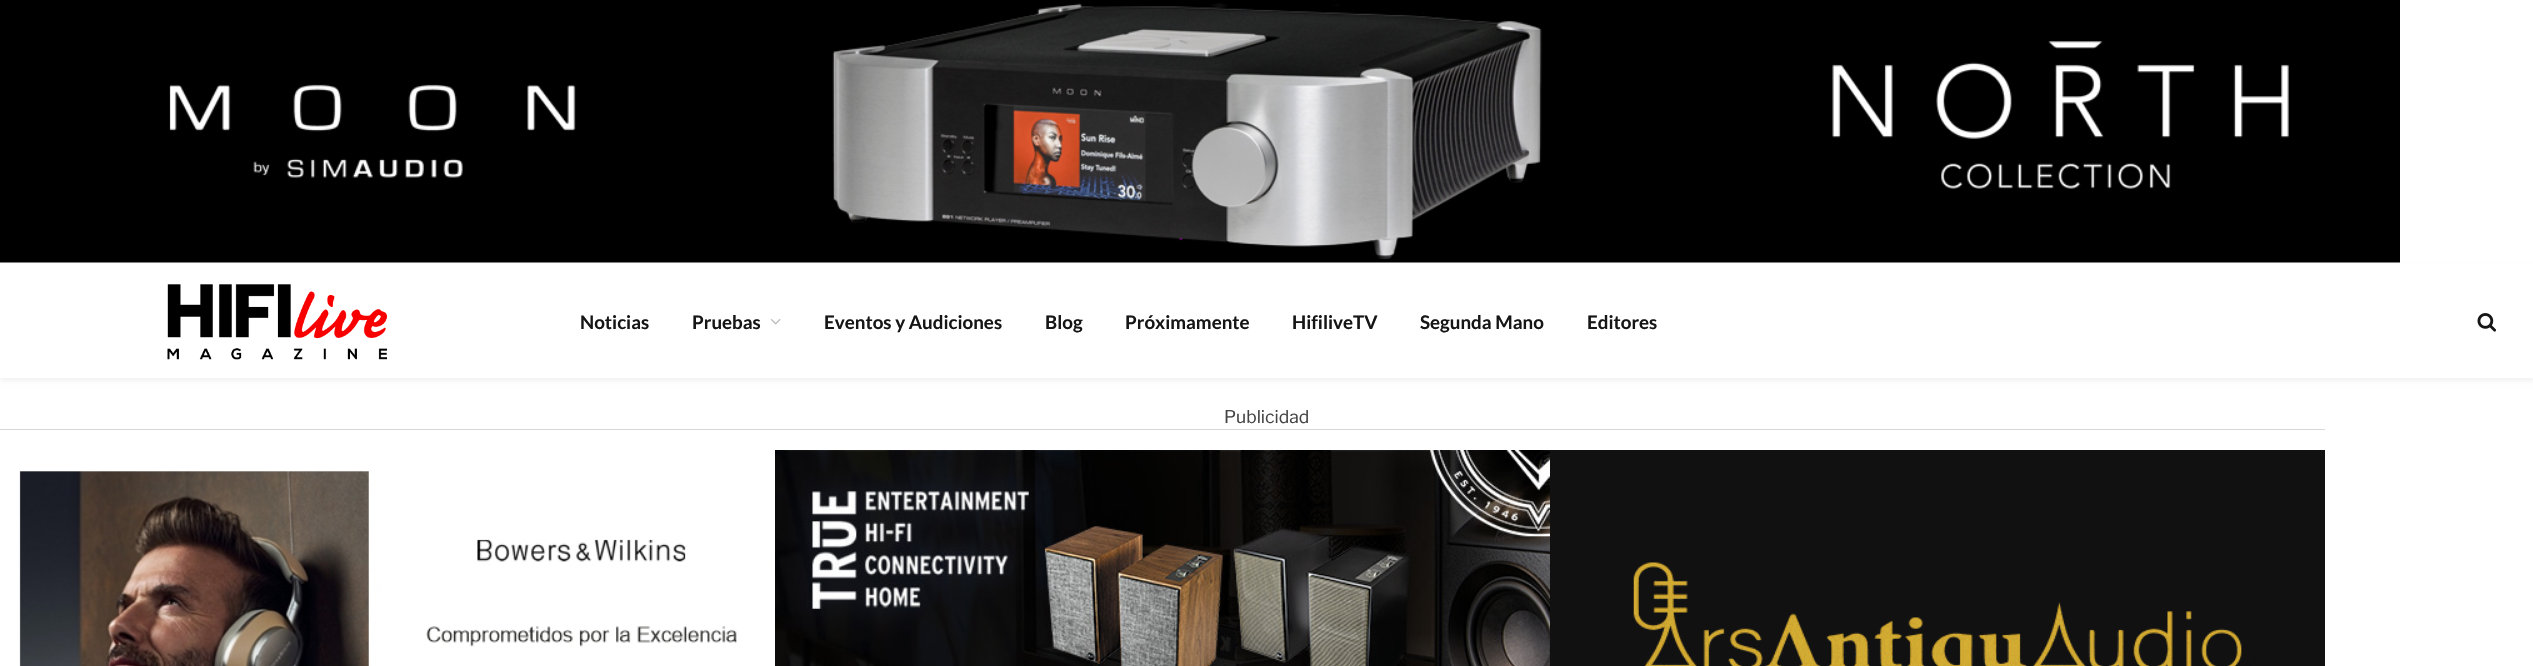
#include "include/core/SkBlurTypes.h"
#include "include/core/SkCanvas.h"
#include "include/core/SkData.h"
#include "include/core/SkFont.h"
#include "include/core/SkFontMgr.h"
#include "include/core/SkImage.h"
#include "include/core/SkMaskFilter.h"
#include "include/core/SkPaint.h"
#include "include/core/SkPathBuilder.h"
#include "include/core/SkTextBlob.h"
#include "include/effects/SkDashPathEffect.h"
#include "include/effects/SkGradientShader.h"
#include "include/utils/SkParsePath.h"

extern sk_sp<SkFontMgr> fontMgr;

void draw(SkCanvas* canvas) {
  SkPaint p;
  p.setAntiAlias(true);
  canvas->clear(SK_ColorWHITE);
  canvas->drawImageRect(SkImages::DeferredFromEncodedData(SkData::MakeFromFileName("images/1.png")), SkRect::MakeLTRB(0, 0, 2400, 263), SkSamplingOptions());
  canvas->save();
  canvas->clipPath(SkPathBuilder(SkPathFillType::kEvenOdd).moveTo(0, 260).lineTo(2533, 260).lineTo(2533, 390).lineTo(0, 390).close().moveTo(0, 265).lineTo(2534, 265).lineTo(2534, 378).lineTo(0, 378).close().detach(), true);
  p.setColor(SkColorSetARGB(13, 0, 0, 0));
  p.setMaskFilter(SkMaskFilter::MakeBlur(kNormal_SkBlurStyle, 2.5f));
  canvas->drawRect(SkRect::MakeLTRB(0, 269, 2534, 381), p);
  p.setMaskFilter(nullptr);
  canvas->restore();
  canvas->drawImageRect(SkImages::DeferredFromEncodedData(SkData::MakeFromFileName("images/2.png")), SkRect::MakeLTRB(167, 284, 387, 360), SkSamplingOptions());
  canvas->drawImageRect(SkImages::DeferredFromEncodedData(SkData::MakeFromFileName("images/3.png")), SkRect::MakeLTRB(770, 319, 781, 325), SkSamplingOptions());
  canvas->drawImageRect(SkImages::DeferredFromEncodedData(SkData::MakeFromFileName("images/4.png")), SkRect::MakeLTRB(2477, 313, 2497, 332), SkSamplingOptions());
  p.setColor(SkColorSetRGB(216, 216, 216));
  canvas->drawRect(SkRect::MakeLTRB(0, 429, 2325, 430), p);
  canvas->drawImageRect(SkImages::DeferredFromEncodedData(SkData::MakeFromFileName("images/5.png")), SkRect::MakeLTRB(19, 470, 738, 666), SkSamplingOptions());
  canvas->drawImageRect(SkImages::DeferredFromEncodedData(SkData::MakeFromFileName("images/6.png")), SkRect::MakeLTRB(775, 450, 1550, 666), SkSamplingOptions());
  canvas->drawImageRect(SkImages::DeferredFromEncodedData(SkData::MakeFromFileName("images/7.png")), SkRect::MakeLTRB(1550, 450, 2325, 666), SkSamplingOptions());
  SkFont font1(fontMgr->matchFamilyStyle("Lato", SkFontStyle::Bold()), 18.75f);
  font1.setSubpixel(true);
  p.setColor(SkColorSetRGB(22, 22, 22));
  canvas->drawString("Noticias", 580, 329, font1, p);
  canvas->drawString("Pruebas", 692, 329, font1, p);
  canvas->drawString("Eventos y Audiciones", 824, 329, font1, p);
  canvas->drawString("Blog", 1045, 329, font1, p);
  canvas->drawString("Próximamente", 1125, 329, font1, p);
  canvas->drawString("HifiliveTV", 1292, 329, font1, p);
  canvas->drawString("Segunda Mano", 1420, 329, font1, p);
  canvas->drawString("Editores", 1587, 329, font1, p);
  SkFont font2(fontMgr->matchFamilyStyle("Libre Franklin", SkFontStyle::Normal()), 17.5f);
  font2.setSubpixel(true);
  p.setColor(SkColorSetRGB(68, 68, 68));
  canvas->drawString("Publicidad", 1224, 423, font2, p);
}
